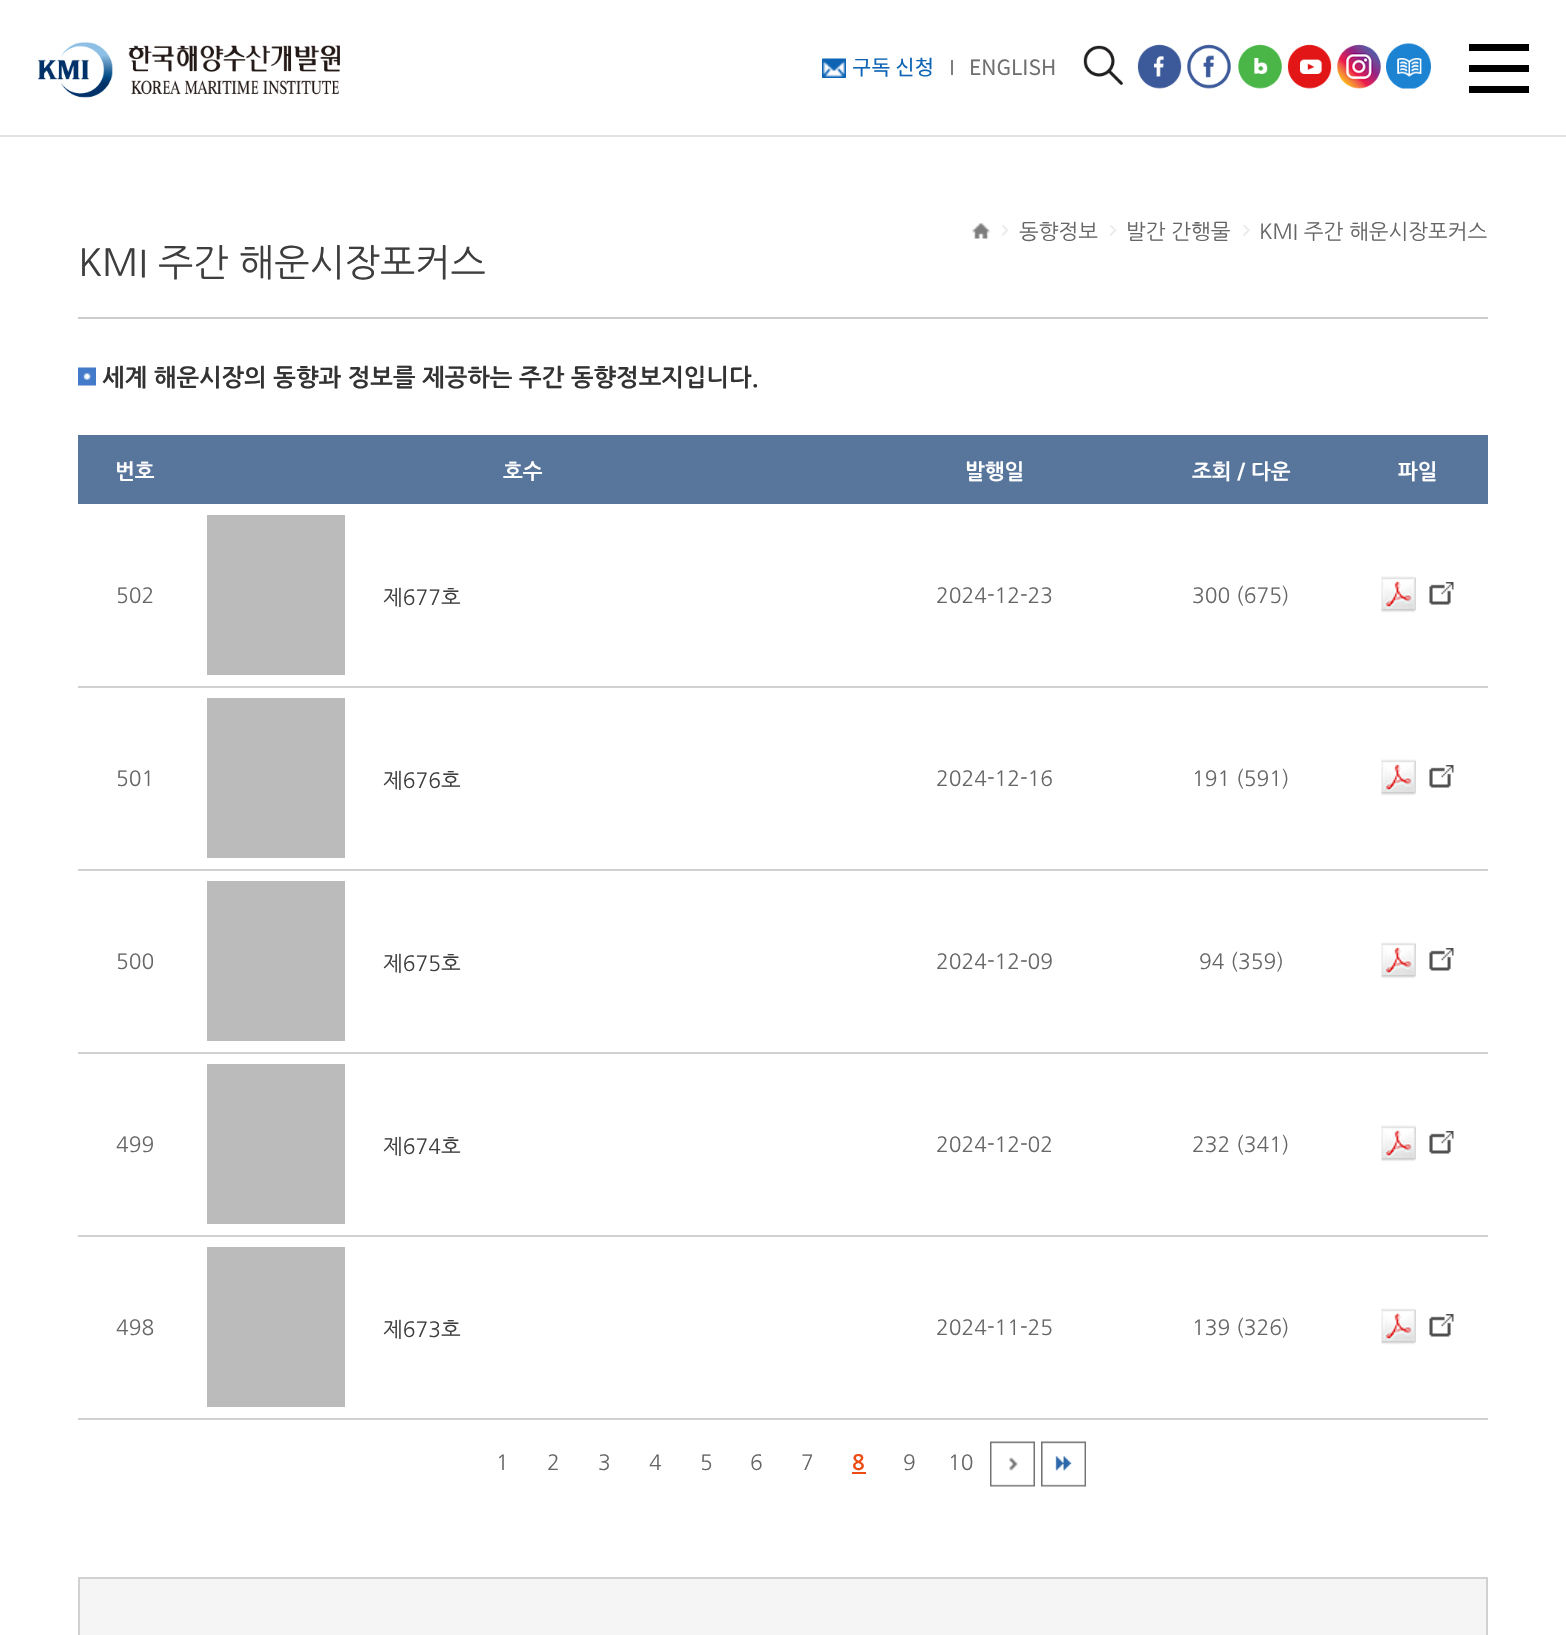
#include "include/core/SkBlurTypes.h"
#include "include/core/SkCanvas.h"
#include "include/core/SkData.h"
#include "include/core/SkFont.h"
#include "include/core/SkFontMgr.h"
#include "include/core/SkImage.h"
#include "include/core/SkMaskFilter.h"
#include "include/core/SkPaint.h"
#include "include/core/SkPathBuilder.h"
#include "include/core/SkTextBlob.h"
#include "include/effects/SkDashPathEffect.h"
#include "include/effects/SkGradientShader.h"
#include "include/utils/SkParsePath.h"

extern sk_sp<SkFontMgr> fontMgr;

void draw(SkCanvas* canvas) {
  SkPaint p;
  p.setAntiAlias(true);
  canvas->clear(SK_ColorWHITE);
  p.setColor(SkColorSetRGB(226, 226, 226));
  canvas->drawRect(SkRect::MakeLTRB(0, 135, 1566, 137), p);
  canvas->drawImageRect(SkImages::DeferredFromEncodedData(SkData::MakeFromFileName("images/1.png")), SkRect::MakeLTRB(38, 42, 340, 98), SkSamplingOptions());
  canvas->drawImageRect(SkImages::DeferredFromEncodedData(SkData::MakeFromFileName("images/2.png")), SkRect::MakeLTRB(822, 58, 846, 78), SkSamplingOptions());
  p.setColor(SkColorSetRGB(127, 127, 127));
  canvas->drawRect(SkRect::MakeLTRB(951, 60, 953, 75), p);
  canvas->drawImageRect(SkImages::DeferredFromEncodedData(SkData::MakeFromFileName("images/3.png")), SkRect::MakeLTRB(1083, 45, 1123, 85), SkSamplingOptions());
  canvas->drawImageRect(SkImages::DeferredFromEncodedData(SkData::MakeFromFileName("images/4.png")), SkRect::MakeLTRB(1137, 44, 1182, 89), SkSamplingOptions());
  canvas->drawImageRect(SkImages::DeferredFromEncodedData(SkData::MakeFromFileName("images/5.png")), SkRect::MakeLTRB(1187, 44, 1231, 89), SkSamplingOptions());
  canvas->drawImageRect(SkImages::DeferredFromEncodedData(SkData::MakeFromFileName("images/6.png")), SkRect::MakeLTRB(1238, 44, 1282, 89), SkSamplingOptions());
  canvas->drawImageRect(SkImages::DeferredFromEncodedData(SkData::MakeFromFileName("images/7.png")), SkRect::MakeLTRB(1287, 44, 1332, 89), SkSamplingOptions());
  canvas->drawImageRect(SkImages::DeferredFromEncodedData(SkData::MakeFromFileName("images/8.png")), SkRect::MakeLTRB(1337, 44, 1381, 89), SkSamplingOptions());
  canvas->drawImageRect(SkImages::DeferredFromEncodedData(SkData::MakeFromFileName("images/9.png")), SkRect::MakeLTRB(1386, 43, 1431, 89), SkSamplingOptions());
  p.setColor(SK_ColorBLACK);
  canvas->drawRect(SkRect::MakeLTRB(1469, 65, 1529, 72), p);
  canvas->drawRect(SkRect::MakeLTRB(1469, 44, 1529, 51), p);
  canvas->drawRect(SkRect::MakeLTRB(1469, 86, 1529, 93), p);
  canvas->drawImageRect(SkImages::DeferredFromEncodedData(SkData::MakeFromFileName("images/10.png")), SkRect::MakeLTRB(972, 223, 990, 239), SkSamplingOptions());
  canvas->drawImageRect(SkImages::DeferredFromEncodedData(SkData::MakeFromFileName("images/11.png")), SkRect::MakeLTRB(1002, 225, 1009, 236), SkSamplingOptions());
  canvas->drawImageRect(SkImages::DeferredFromEncodedData(SkData::MakeFromFileName("images/12.png")), SkRect::MakeLTRB(1110, 225, 1117, 236), SkSamplingOptions());
  canvas->drawImageRect(SkImages::DeferredFromEncodedData(SkData::MakeFromFileName("images/13.png")), SkRect::MakeLTRB(1243, 225, 1250, 236), SkSamplingOptions());
  p.setColor(SkColorSetRGB(204, 204, 204));
  canvas->drawRect(SkRect::MakeLTRB(78, 317, 1488, 319), p);
  canvas->drawImageRect(SkImages::DeferredFromEncodedData(SkData::MakeFromFileName("images/14.png")), SkRect::MakeLTRB(78, 367, 96, 386), SkSamplingOptions());
  p.setColor(SkColorSetRGB(209, 209, 209));
  canvas->drawRect(SkRect::MakeLTRB(78, 1418, 1488, 1420), p);
  p.setColor(SkColorSetRGB(88, 117, 156));
  canvas->drawRect(SkRect::MakeLTRB(78, 435, 1488, 504), p);
  p.setColor(SkColorSetRGB(187, 187, 187));
  canvas->drawRect(SkRect::MakeLTRB(207, 515, 345, 675), p);
  canvas->drawImageRect(SkImages::DeferredFromEncodedData(SkData::MakeFromFileName("images/15.png")), SkRect::MakeLTRB(1381, 576, 1416, 613), SkSamplingOptions());
  canvas->drawImageRect(SkImages::DeferredFromEncodedData(SkData::MakeFromFileName("images/16.png")), SkRect::MakeLTRB(1429, 582, 1454, 605), SkSamplingOptions());
  p.setColor(SkColorSetRGB(209, 209, 209));
  canvas->drawRect(SkRect::MakeLTRB(78, 686, 1488, 688), p);
  canvas->drawImageRect(SkImages::DeferredFromEncodedData(SkData::MakeFromFileName("images/15.png")), SkRect::MakeLTRB(1381, 759, 1416, 796), SkSamplingOptions());
  canvas->drawImageRect(SkImages::DeferredFromEncodedData(SkData::MakeFromFileName("images/16.png")), SkRect::MakeLTRB(1429, 765, 1454, 788), SkSamplingOptions());
  p.setColor(SkColorSetRGB(187, 187, 187));
  canvas->drawRect(SkRect::MakeLTRB(207, 698, 345, 858), p);
  p.setColor(SkColorSetRGB(209, 209, 209));
  canvas->drawRect(SkRect::MakeLTRB(78, 869, 1488, 871), p);
  canvas->drawImageRect(SkImages::DeferredFromEncodedData(SkData::MakeFromFileName("images/15.png")), SkRect::MakeLTRB(1381, 942, 1416, 979), SkSamplingOptions());
  canvas->drawImageRect(SkImages::DeferredFromEncodedData(SkData::MakeFromFileName("images/16.png")), SkRect::MakeLTRB(1429, 948, 1454, 971), SkSamplingOptions());
  p.setColor(SkColorSetRGB(187, 187, 187));
  canvas->drawRect(SkRect::MakeLTRB(207, 881, 345, 1041), p);
  p.setColor(SkColorSetRGB(209, 209, 209));
  canvas->drawRect(SkRect::MakeLTRB(78, 1052, 1488, 1054), p);
  canvas->drawImageRect(SkImages::DeferredFromEncodedData(SkData::MakeFromFileName("images/15.png")), SkRect::MakeLTRB(1381, 1125, 1416, 1162), SkSamplingOptions());
  canvas->drawImageRect(SkImages::DeferredFromEncodedData(SkData::MakeFromFileName("images/16.png")), SkRect::MakeLTRB(1429, 1131, 1454, 1154), SkSamplingOptions());
  p.setColor(SkColorSetRGB(187, 187, 187));
  canvas->drawRect(SkRect::MakeLTRB(207, 1064, 345, 1224), p);
  p.setColor(SkColorSetRGB(209, 209, 209));
  canvas->drawRect(SkRect::MakeLTRB(78, 1235, 1488, 1237), p);
  canvas->drawImageRect(SkImages::DeferredFromEncodedData(SkData::MakeFromFileName("images/15.png")), SkRect::MakeLTRB(1381, 1308, 1416, 1345), SkSamplingOptions());
  canvas->drawImageRect(SkImages::DeferredFromEncodedData(SkData::MakeFromFileName("images/16.png")), SkRect::MakeLTRB(1429, 1314, 1454, 1337), SkSamplingOptions());
  p.setColor(SkColorSetRGB(187, 187, 187));
  canvas->drawRect(SkRect::MakeLTRB(207, 1247, 345, 1407), p);
  p.setColor(SkColorSetRGB(236, 76, 20));
  canvas->drawRect(SkRect::MakeLTRB(852, 1472, 866, 1474), p);
  canvas->drawImageRect(SkImages::DeferredFromEncodedData(SkData::MakeFromFileName("images/17.png")), SkRect::MakeLTRB(990, 1441, 1035, 1487), SkSamplingOptions());
  canvas->drawImageRect(SkImages::DeferredFromEncodedData(SkData::MakeFromFileName("images/18.png")), SkRect::MakeLTRB(1041, 1441, 1086, 1487), SkSamplingOptions());
  p.setColor(SkColorSetRGB(245, 245, 245));
  canvas->drawRect(SkRect::MakeLTRB(79, 1578, 1487, 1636), p);
  p.setStyle(SkPaint::kStroke_Style);
  p.setStrokeWidth(2);
  p.setColor(SkColorSetRGB(209, 209, 209));
  canvas->drawRect(SkRect::MakeLTRB(79, 1578, 1487, 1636), p);
  SkFont font1(fontMgr->matchFamilyStyle("Noto Sans KR", SkFontStyle::Normal()), 21);
  font1.setSubpixel(true);
  p.setStyle(SkPaint::kFill_Style);
  p.setColor(SkColorSetRGB(13, 100, 180));
  canvas->drawString("구독 신청", 852, 75, font1, p);
  p.setColor(SkColorSetRGB(112, 112, 112));
  canvas->drawString("ENGLISH", 969, 75, font1, p);
  SkFont font2(fontMgr->matchFamilyStyle("NanumGothic", SkFontStyle::Normal()), 21);
  font2.setSubpixel(true);
  p.setColor(SkColorSetRGB(102, 102, 102));
  canvas->drawString("동향정보", 1019, 239, font2, p);
  canvas->drawString("발간 간행물", 1126, 239, font2, p);
  canvas->drawString("KMI 주간 해운시장포커스", 1259, 239, font2, p);
  SkFont font3(fontMgr->matchFamilyStyle("NanumGothic", SkFontStyle::Normal()), 37.5f);
  font3.setSubpixel(true);
  p.setColor(SkColorSetRGB(62, 62, 62));
  canvas->drawString("KMI 주간 해운시장포커스", 78, 276, font3, p);
  SkFont font4(fontMgr->matchFamilyStyle("NanumGothic", SkFontStyle::Bold()), 24);
  font4.setSubpixel(true);
  p.setColor(SkColorSetRGB(51, 51, 51));
  canvas->drawString("세계 해운시장의 동향과 정보를 제공하는 주간 동향정보지입니다.", 102, 386, font4, p);
  SkFont font5(fontMgr->matchFamilyStyle("NanumGothic", SkFontStyle::Bold()), 21);
  font5.setSubpixel(true);
  p.setColor(SK_ColorWHITE);
  canvas->drawString("번호", 115, 479, font5, p);
  canvas->drawString("호수", 503, 479, font5, p);
  canvas->drawString("발행일", 965, 479, font5, p);
  canvas->drawString("조회 / 다운", 1192, 479, font5, p);
  canvas->drawString("파일", 1398, 479, font5, p);
  p.setColor(SkColorSetRGB(102, 102, 102));
  canvas->drawString("502", 116, 603, font2, p);
  p.setColor(SkColorSetRGB(62, 62, 62));
  canvas->drawString("제677호", 383, 605, font2, p);
  p.setColor(SkColorSetRGB(102, 102, 102));
  canvas->drawString("2024-12-23", 936, 603, font2, p);
  canvas->drawString("300 (675)", 1192, 603, font2, p);
  canvas->drawString("501", 116, 786, font2, p);
  p.setColor(SkColorSetRGB(62, 62, 62));
  canvas->drawString("제676호", 383, 788, font2, p);
  p.setColor(SkColorSetRGB(102, 102, 102));
  canvas->drawString("2024-12-16", 936, 786, font2, p);
  canvas->drawString("191 (591)", 1192, 786, font2, p);
  canvas->drawString("500", 116, 969, font2, p);
  p.setColor(SkColorSetRGB(62, 62, 62));
  canvas->drawString("제675호", 383, 971, font2, p);
  p.setColor(SkColorSetRGB(102, 102, 102));
  canvas->drawString("2024-12-09", 936, 969, font2, p);
  canvas->drawString("94 (359)", 1199, 969, font2, p);
  canvas->drawString("499", 116, 1152, font2, p);
  p.setColor(SkColorSetRGB(62, 62, 62));
  canvas->drawString("제674호", 383, 1154, font2, p);
  p.setColor(SkColorSetRGB(102, 102, 102));
  canvas->drawString("2024-12-02", 936, 1152, font2, p);
  canvas->drawString("232 (341)", 1192, 1152, font2, p);
  canvas->drawString("498", 116, 1335, font2, p);
  p.setColor(SkColorSetRGB(62, 62, 62));
  canvas->drawString("제673호", 383, 1337, font2, p);
  p.setColor(SkColorSetRGB(102, 102, 102));
  canvas->drawString("2024-11-25", 936, 1335, font2, p);
  canvas->drawString("139 (326)", 1192, 1335, font2, p);
  canvas->drawString("1", 496, 1470, font2, p);
  canvas->drawString("2", 547, 1470, font2, p);
  canvas->drawString("3", 598, 1470, font2, p);
  canvas->drawString("4", 649, 1470, font2, p);
  canvas->drawString("5", 700, 1470, font2, p);
  canvas->drawString("6", 750, 1470, font2, p);
  canvas->drawString("7", 801, 1470, font2, p);
  p.setColor(SkColorSetRGB(236, 76, 20));
  canvas->drawString("8", 852, 1470, font5, p);
  p.setColor(SkColorSetRGB(102, 102, 102));
  canvas->drawString("9", 903, 1470, font2, p);
  canvas->drawString("10", 948, 1470, font2, p);
}
